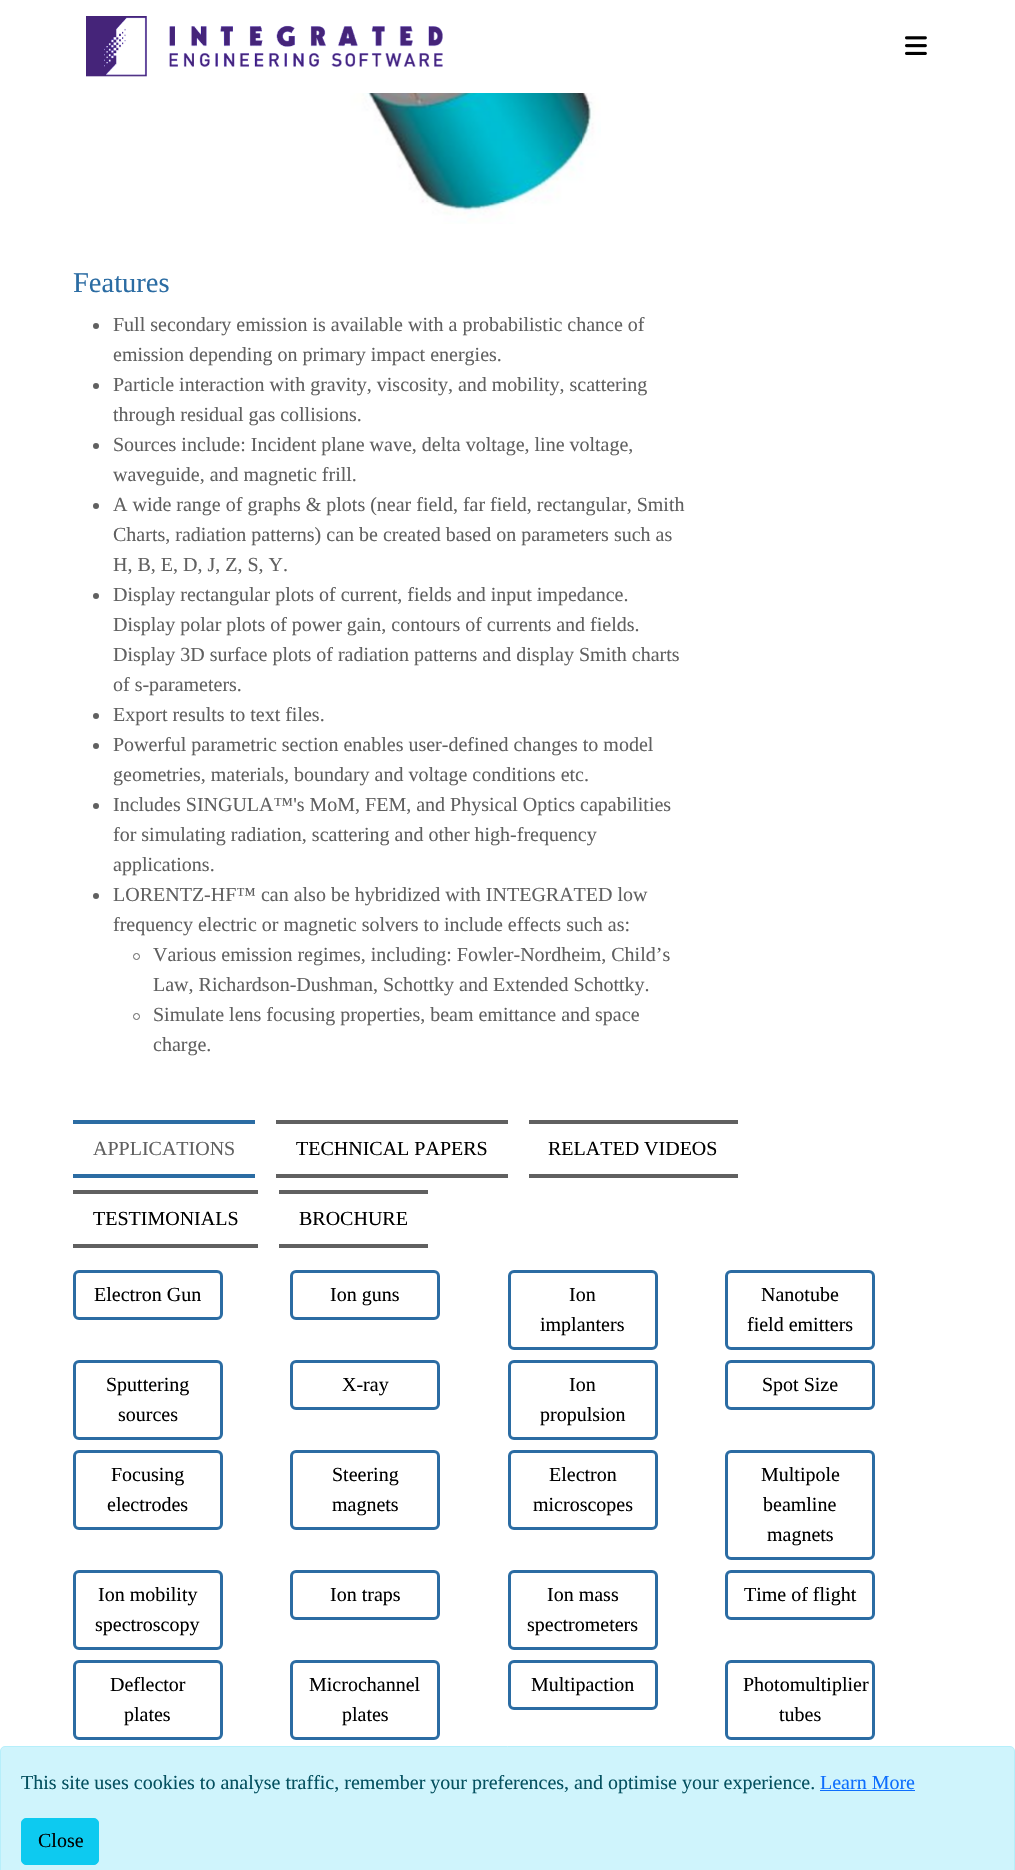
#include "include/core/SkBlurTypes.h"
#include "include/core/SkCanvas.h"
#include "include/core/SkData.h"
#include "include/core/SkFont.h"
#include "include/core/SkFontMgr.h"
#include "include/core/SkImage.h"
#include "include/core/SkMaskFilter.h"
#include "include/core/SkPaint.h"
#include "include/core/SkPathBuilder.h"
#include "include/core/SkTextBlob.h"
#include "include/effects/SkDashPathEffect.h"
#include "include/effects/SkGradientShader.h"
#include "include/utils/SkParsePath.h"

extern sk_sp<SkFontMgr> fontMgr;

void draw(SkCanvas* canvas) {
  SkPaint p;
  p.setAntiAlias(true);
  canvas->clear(SK_ColorWHITE);
  canvas->drawImageRect(SkImages::DeferredFromEncodedData(SkData::MakeFromFileName("images/1.png")), SkRect::MakeLTRB(86, 16, 443, 77), SkSamplingOptions());
  canvas->drawImageRect(SkImages::DeferredFromEncodedData(SkData::MakeFromFileName("images/2.png")), SkRect::MakeLTRB(905, 36, 927, 55), SkSamplingOptions());
  canvas->drawImageRect(SkImages::DeferredFromEncodedData(SkData::MakeFromFileName("images/3.png")), SkRect::MakeLTRB(131, 93, 601, 224), SkSamplingOptions());
  p.setColor(SkColorSetRGB(96, 96, 96));
  canvas->drawCircle(96, 326, 3, p);
  canvas->drawCircle(96, 386, 3, p);
  canvas->drawCircle(96, 446, 3, p);
  canvas->drawCircle(96, 506, 3, p);
  canvas->drawCircle(96, 596, 3, p);
  canvas->drawCircle(96, 716, 3, p);
  canvas->drawCircle(96, 746, 3, p);
  canvas->drawCircle(96, 806, 3, p);
  canvas->drawCircle(96, 896, 3, p);
  p.setStyle(SkPaint::kStroke_Style);
  p.setStrokeWidth(1);
  canvas->drawCircle(136.5f, 956.5f, 3, p);
  canvas->drawCircle(136.5f, 1016.5f, 3, p);
  p.setStyle(SkPaint::kFill_Style);
  p.setColor(SkColorSetRGB(43, 108, 163));
  canvas->drawRect(SkRect::MakeLTRB(73, 1120, 255, 1124), p);
  canvas->drawRect(SkRect::MakeLTRB(73, 1174, 255, 1178), p);
  p.setColor(SkColorSetRGB(96, 96, 96));
  canvas->drawRect(SkRect::MakeLTRB(276, 1120, 508, 1124), p);
  canvas->drawRect(SkRect::MakeLTRB(276, 1174, 508, 1178), p);
  canvas->drawRect(SkRect::MakeLTRB(529, 1120, 738, 1124), p);
  canvas->drawRect(SkRect::MakeLTRB(529, 1174, 738, 1178), p);
  canvas->drawRect(SkRect::MakeLTRB(73, 1190, 258, 1194), p);
  canvas->drawRect(SkRect::MakeLTRB(73, 1244, 258, 1248), p);
  canvas->drawRect(SkRect::MakeLTRB(279, 1190, 428, 1194), p);
  canvas->drawRect(SkRect::MakeLTRB(279, 1244, 428, 1248), p);
  p.setStyle(SkPaint::kStroke_Style);
  p.setStrokeWidth(3);
  p.setColor(SkColorSetRGB(43, 108, 163));
  canvas->drawRoundRect(SkRect::MakeLTRB(74.5f, 1271.5f, 221.5f, 1318.5f), 4.5f, 4.5f, p);
  canvas->drawRoundRect(SkRect::MakeLTRB(291.5f, 1271.5f, 438.5f, 1318.5f), 4.5f, 4.5f, p);
  canvas->drawRoundRect(SkRect::MakeLTRB(509.5f, 1271.5f, 656.5f, 1348.5f), 4.5f, 4.5f, p);
  canvas->drawRoundRect(SkRect::MakeLTRB(726.5f, 1271.5f, 873.5f, 1348.5f), 4.5f, 4.5f, p);
  canvas->drawRoundRect(SkRect::MakeLTRB(74.5f, 1361.5f, 221.5f, 1438.5f), 4.5f, 4.5f, p);
  canvas->drawRoundRect(SkRect::MakeLTRB(291.5f, 1361.5f, 438.5f, 1408.5f), 4.5f, 4.5f, p);
  canvas->drawRoundRect(SkRect::MakeLTRB(509.5f, 1361.5f, 656.5f, 1438.5f), 4.5f, 4.5f, p);
  canvas->drawRoundRect(SkRect::MakeLTRB(726.5f, 1361.5f, 873.5f, 1408.5f), 4.5f, 4.5f, p);
  canvas->drawRoundRect(SkRect::MakeLTRB(74.5f, 1451.5f, 221.5f, 1528.5f), 4.5f, 4.5f, p);
  canvas->drawRoundRect(SkRect::MakeLTRB(291.5f, 1451.5f, 438.5f, 1528.5f), 4.5f, 4.5f, p);
  canvas->drawRoundRect(SkRect::MakeLTRB(509.5f, 1451.5f, 656.5f, 1528.5f), 4.5f, 4.5f, p);
  canvas->drawRoundRect(SkRect::MakeLTRB(726.5f, 1451.5f, 873.5f, 1558.5f), 4.5f, 4.5f, p);
  canvas->drawRoundRect(SkRect::MakeLTRB(74.5f, 1571.5f, 221.5f, 1648.5f), 4.5f, 4.5f, p);
  canvas->drawRoundRect(SkRect::MakeLTRB(291.5f, 1571.5f, 438.5f, 1618.5f), 4.5f, 4.5f, p);
  canvas->drawRoundRect(SkRect::MakeLTRB(509.5f, 1571.5f, 656.5f, 1648.5f), 4.5f, 4.5f, p);
  canvas->drawRoundRect(SkRect::MakeLTRB(726.5f, 1571.5f, 873.5f, 1618.5f), 4.5f, 4.5f, p);
  canvas->drawRoundRect(SkRect::MakeLTRB(74.5f, 1661.5f, 221.5f, 1738.5f), 4.5f, 4.5f, p);
  canvas->drawRoundRect(SkRect::MakeLTRB(291.5f, 1661.5f, 438.5f, 1738.5f), 4.5f, 4.5f, p);
  canvas->drawRoundRect(SkRect::MakeLTRB(509.5f, 1661.5f, 656.5f, 1708.5f), 4.5f, 4.5f, p);
  canvas->drawRoundRect(SkRect::MakeLTRB(726.5f, 1661.5f, 873.5f, 1738.5f), 4.5f, 4.5f, p);
  p.setStyle(SkPaint::kFill_Style);
  p.setColor(SkColorSetRGB(207, 244, 252));
  canvas->drawRoundRect(SkRect::MakeLTRB(0.5f, 1746.5f, 1014.5f, 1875.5f), 4.5f, 4.5f, p);
  p.setStyle(SkPaint::kStroke_Style);
  p.setStrokeWidth(1);
  p.setColor(SkColorSetRGB(182, 239, 251));
  canvas->drawRoundRect(SkRect::MakeLTRB(0.5f, 1746.5f, 1014.5f, 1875.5f), 4.5f, 4.5f, p);
  p.setStyle(SkPaint::kFill_Style);
  p.setColor(SkColorSetRGB(13, 110, 253));
  canvas->drawRect(SkRect::MakeLTRB(820, 1790, 915, 1791), p);
  p.setColor(SkColorSetRGB(13, 202, 240));
  canvas->drawRoundRect(SkRect::MakeLTRB(21.5f, 1818.5f, 98.5f, 1864.5f), 4.5f, 4.5f, p);
  p.setStyle(SkPaint::kStroke_Style);
  canvas->drawRoundRect(SkRect::MakeLTRB(21.5f, 1818.5f, 98.5f, 1864.5f), 4.5f, 4.5f, p);
  SkFont font1(fontMgr->matchFamilyStyle("Liberation Serif", SkFontStyle::Normal()), 28.5f);
  font1.setSubpixel(true);
  p.setStyle(SkPaint::kFill_Style);
  p.setColor(SkColorSetRGB(43, 108, 163));
  canvas->drawString("Features", 73, 292, font1, p);
  SkFont font2(fontMgr->matchFamilyStyle("Liberation Serif", SkFontStyle::Normal()), 20);
  font2.setSubpixel(true);
  p.setColor(SkColorSetRGB(96, 96, 96));
  canvas->drawString("Full secondary emission is available with a probabilistic chance of", 113, 331, font2, p);
  canvas->drawString("emission depending on primary impact energies.", 113, 361, font2, p);
  canvas->drawString("Particle interaction with gravity, viscosity, and mobility, scattering", 113, 391, font2, p);
  canvas->drawString("through residual gas collisions.", 113, 421, font2, p);
  canvas->drawString("Sources include: Incident plane wave, delta voltage, line voltage,", 113, 451, font2, p);
  canvas->drawString("waveguide, and magnetic frill.", 113, 481, font2, p);
  canvas->drawString("A wide range of graphs & plots (near field, far field, rectangular, Smith", 113, 511, font2, p);
  canvas->drawString("Charts, radiation patterns) can be created based on parameters such as", 113, 541, font2, p);
  canvas->drawString("H, B, E, D, J, Z, S, Y.", 113, 571, font2, p);
  canvas->drawString("Display rectangular plots of current, fields and input impedance.", 113, 601, font2, p);
  canvas->drawString("Display polar plots of power gain, contours of currents and fields.", 113, 631, font2, p);
  canvas->drawString("Display 3D surface plots of radiation patterns and display Smith charts", 113, 661, font2, p);
  canvas->drawString("of s-parameters.", 113, 691, font2, p);
  canvas->drawString("Export results to text files.", 113, 721, font2, p);
  canvas->drawString("Powerful parametric section enables user-defined changes to model", 113, 751, font2, p);
  canvas->drawString("geometries, materials, boundary and voltage conditions etc.", 113, 781, font2, p);
  canvas->drawString("Includes SINGULA™'s MoM, FEM, and Physical Optics capabilities", 113, 811, font2, p);
  canvas->drawString("for simulating radiation, scattering and other high-frequency", 113, 841, font2, p);
  canvas->drawString("applications.", 113, 871, font2, p);
  canvas->drawString("LORENTZ-HF™ can also be hybridized with INTEGRATED low", 113, 901, font2, p);
  canvas->drawString("frequency electric or magnetic solvers to include effects such as:", 113, 931, font2, p);
  canvas->drawString("Various emission regimes, including: Fowler-Nordheim, Child’s", 153, 961, font2, p);
  canvas->drawString("Law, Richardson-Dushman, Schottky and Extended Schottky.", 153, 991, font2, p);
  canvas->drawString("Simulate lens focusing properties, beam emittance and space", 153, 1021, font2, p);
  canvas->drawString("charge.", 153, 1051, font2, p);
  canvas->drawString("APPLICATIONS", 93, 1155, font2, p);
  p.setColor(SK_ColorBLACK);
  canvas->drawString("TECHNICAL PAPERS", 296, 1155, font2, p);
  canvas->drawString("RELATED VIDEOS", 548, 1155, font2, p);
  canvas->drawString("TESTIMONIALS", 93, 1225, font2, p);
  canvas->drawString("BROCHURE", 299, 1225, font2, p);
  canvas->drawString("Electron Gun", 94, 1301, font2, p);
  canvas->drawString("Ion guns", 330, 1301, font2, p);
  canvas->drawString("Ion", 569, 1301, font2, p);
  canvas->drawString("implanters", 540, 1331, font2, p);
  canvas->drawString("Nanotube", 761, 1301, font2, p);
  canvas->drawString("field emitters", 747, 1331, font2, p);
  canvas->drawString("Sputtering", 106, 1391, font2, p);
  canvas->drawString("sources", 118, 1421, font2, p);
  canvas->drawString("X-ray", 342, 1391, font2, p);
  canvas->drawString("Ion", 569, 1391, font2, p);
  canvas->drawString("propulsion", 540, 1421, font2, p);
  canvas->drawString("Spot Size", 762, 1391, font2, p);
  canvas->drawString("Focusing", 111, 1481, font2, p);
  canvas->drawString("electrodes", 107, 1511, font2, p);
  canvas->drawString("Steering", 332, 1481, font2, p);
  canvas->drawString("magnets", 332, 1511, font2, p);
  canvas->drawString("Electron", 549, 1481, font2, p);
  canvas->drawString("microscopes", 533, 1511, font2, p);
  canvas->drawString("Multipole", 761, 1481, font2, p);
  canvas->drawString("beamline", 763, 1511, font2, p);
  canvas->drawString("magnets", 767, 1541, font2, p);
  canvas->drawString("Ion mobility", 98, 1601, font2, p);
  canvas->drawString("spectroscopy", 95, 1631, font2, p);
  canvas->drawString("Ion traps", 330, 1601, font2, p);
  canvas->drawString("Ion mass", 547, 1601, font2, p);
  canvas->drawString("spectrometers", 527, 1631, font2, p);
  canvas->drawString("Time of flight", 744, 1601, font2, p);
  canvas->drawString("Deflector", 110, 1691, font2, p);
  canvas->drawString("plates", 124, 1721, font2, p);
  canvas->drawString("Microchannel", 309, 1691, font2, p);
  canvas->drawString("plates", 342, 1721, font2, p);
  canvas->drawString("Multipaction", 531, 1691, font2, p);
  canvas->drawString("Photomultiplier", 743, 1691, font2, p);
  canvas->drawString("tubes", 779, 1721, font2, p);
  p.setColor(SkColorSetRGB(5, 81, 96));
  canvas->drawString("This site uses cookies to analyse traffic, remember your preferences, and optimise your experience.", 21, 1789, font2, p);
  p.setColor(SkColorSetRGB(13, 110, 253));
  canvas->drawString("Learn More", 820, 1789, font2, p);
  p.setColor(SK_ColorBLACK);
  canvas->drawString("Close", 38, 1847, font2, p);
}
